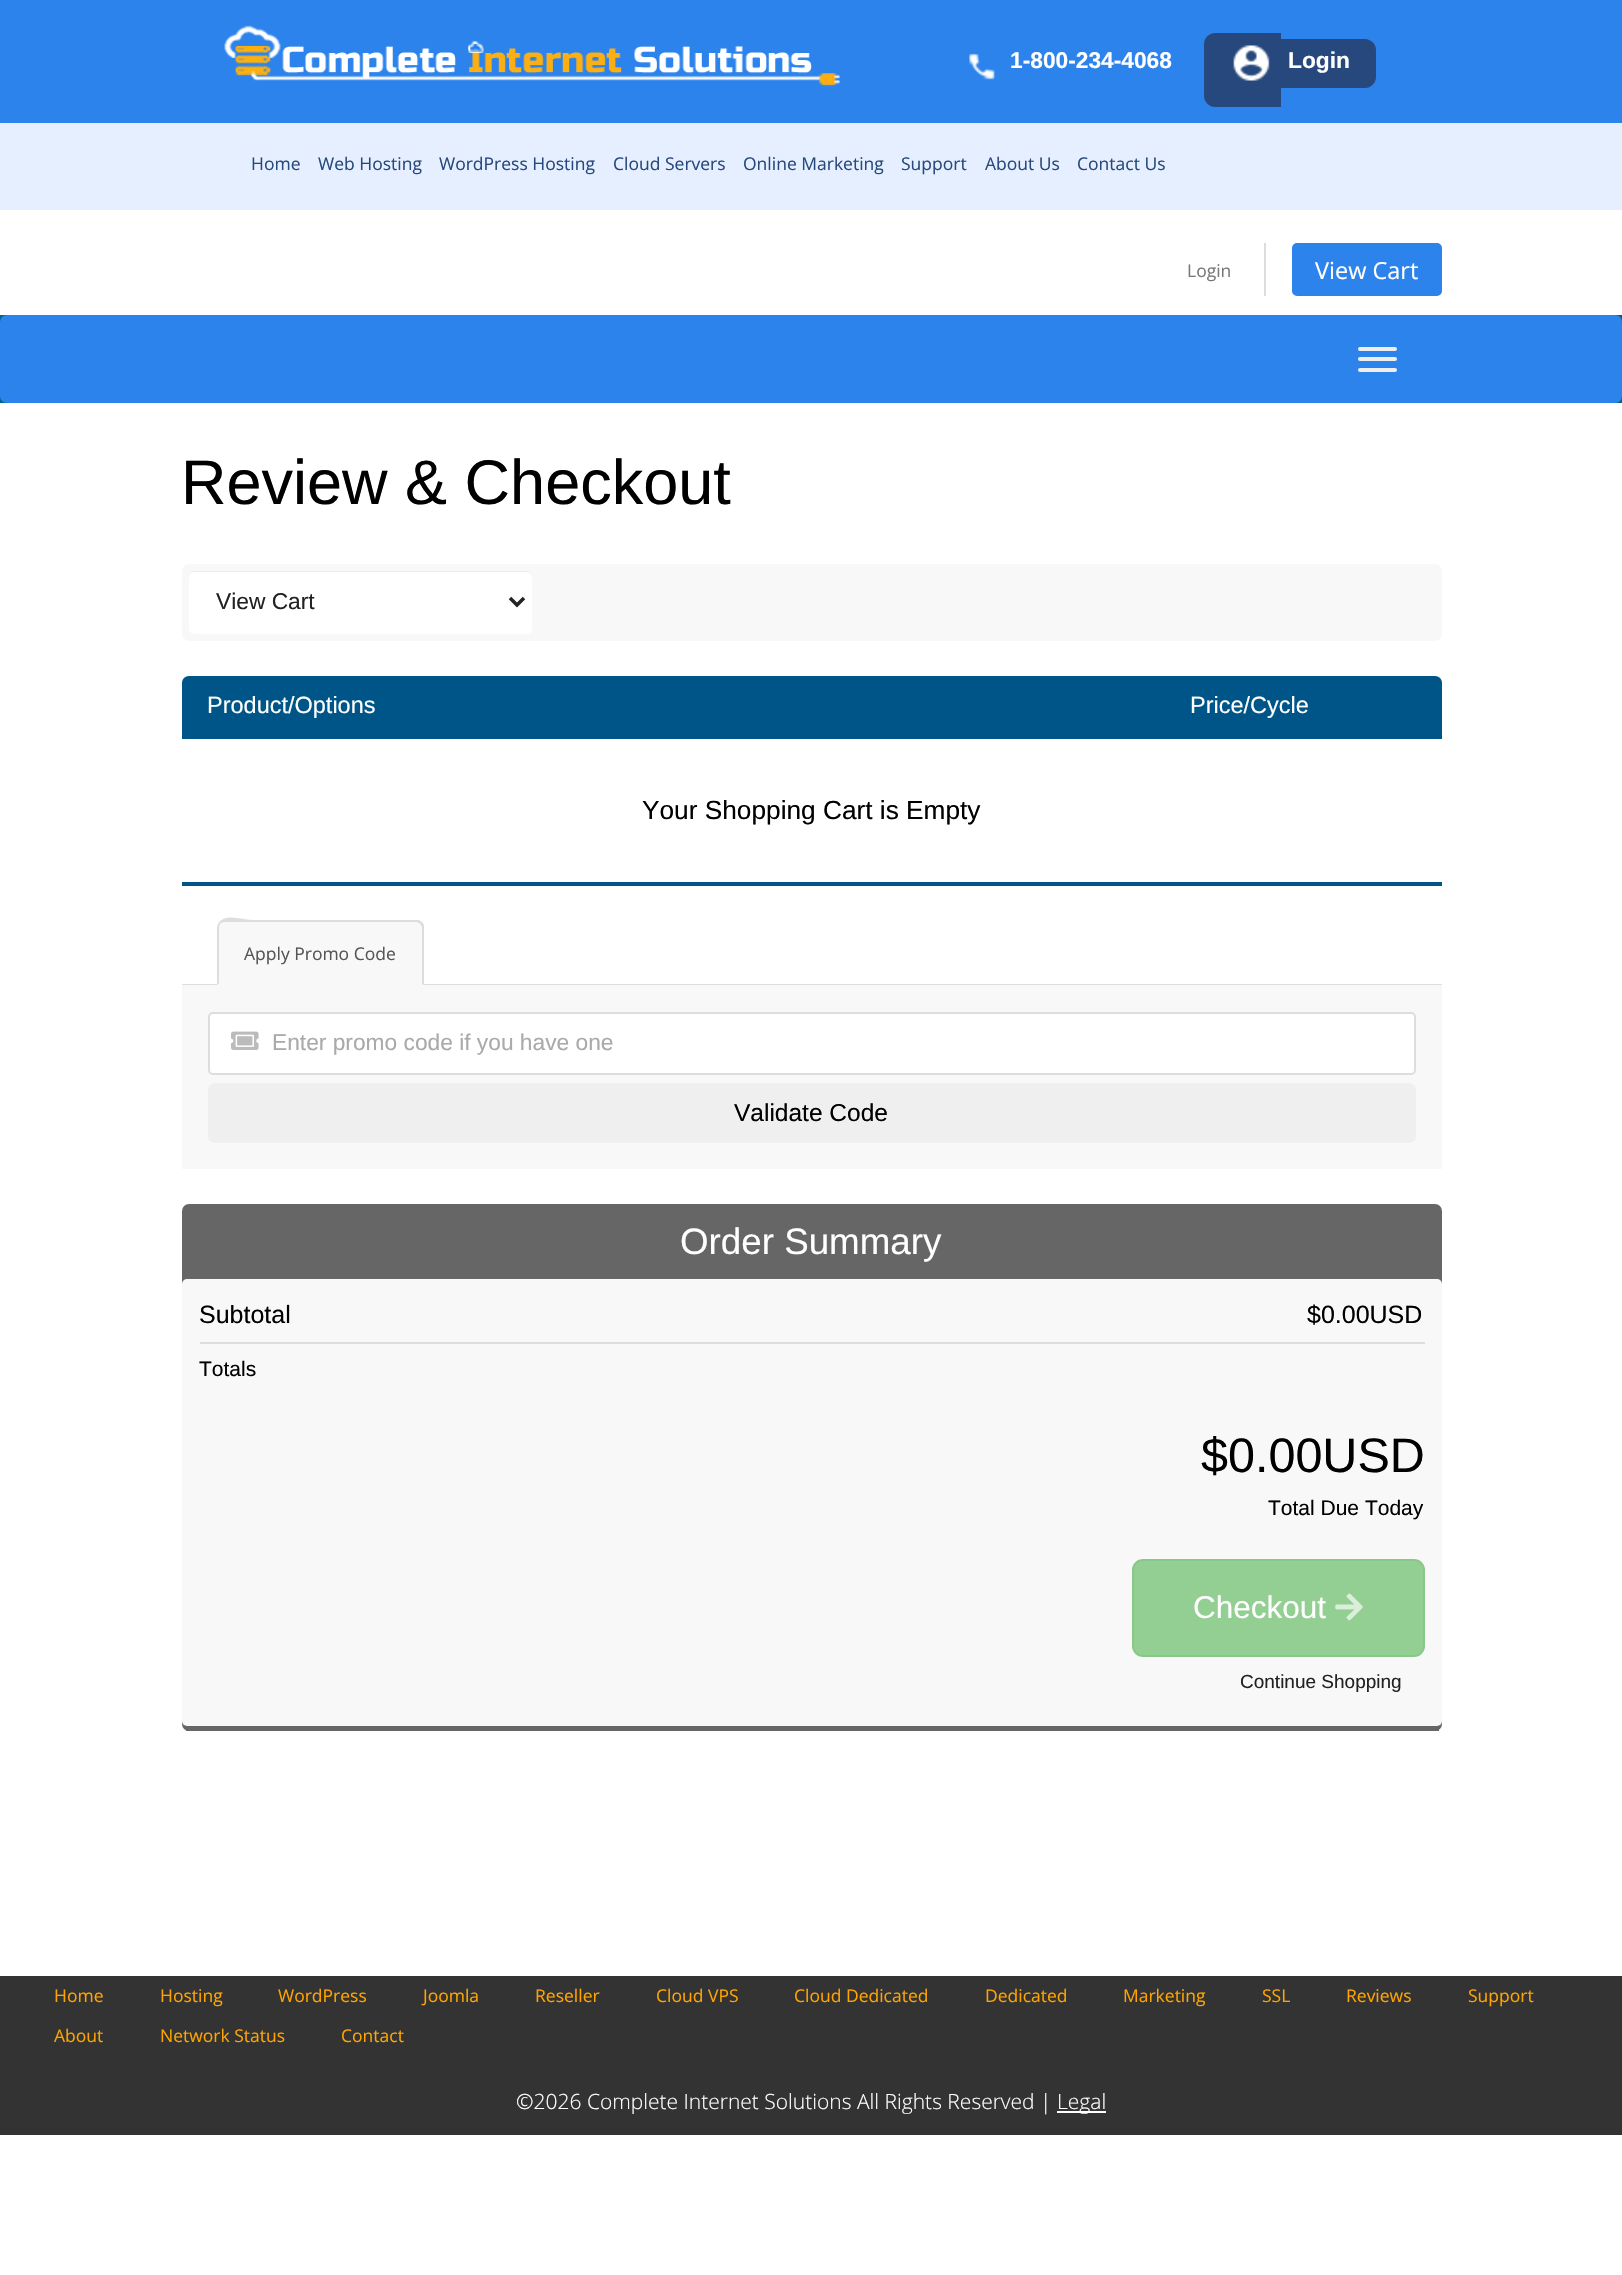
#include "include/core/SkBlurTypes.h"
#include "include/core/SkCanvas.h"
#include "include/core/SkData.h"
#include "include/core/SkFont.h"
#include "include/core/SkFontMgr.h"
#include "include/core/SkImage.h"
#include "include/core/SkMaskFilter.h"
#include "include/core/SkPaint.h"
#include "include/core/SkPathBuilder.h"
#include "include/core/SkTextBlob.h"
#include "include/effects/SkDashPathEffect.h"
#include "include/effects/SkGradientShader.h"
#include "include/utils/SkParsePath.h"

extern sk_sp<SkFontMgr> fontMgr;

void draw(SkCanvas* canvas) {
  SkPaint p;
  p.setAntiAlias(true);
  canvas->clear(SK_ColorWHITE);
  p.setColor(SkColorSetRGB(44, 131, 235));
  canvas->drawRect(SkRect::MakeLTRB(0, 0, 1622, 123), p);
  canvas->drawImageRect(SkImages::DeferredFromEncodedData(SkData::MakeFromFileName("images/1.png")), SkRect::MakeLTRB(224, 25, 840, 86), SkSamplingOptions());
  canvas->drawImageRect(SkImages::DeferredFromEncodedData(SkData::MakeFromFileName("images/2.png")), SkRect::MakeLTRB(969, 53, 995, 80), SkSamplingOptions());
  p.setColor(SkColorSetRGB(39, 72, 124));
  canvas->drawPath(SkPathBuilder().moveTo(1215, 33).lineTo(1281, 33).lineTo(1281, 107).lineTo(1215, 107).cubicTo(1209, 107, 1204, 102, 1204, 96).lineTo(1204, 44).cubicTo(1204, 38, 1209, 33, 1215, 33).close().detach(), p);
  canvas->drawImageRect(SkImages::DeferredFromEncodedData(SkData::MakeFromFileName("images/3.png")), SkRect::MakeLTRB(1233, 45, 1270, 81), SkSamplingOptions());
  canvas->drawRect(SkRect::MakeLTRB(1281, 39, 1288, 88), p);
  canvas->drawPath(SkPathBuilder().moveTo(1288, 39).lineTo(1365, 39).cubicTo(1371, 39, 1376, 44, 1376, 50).lineTo(1376, 77).cubicTo(1376, 83, 1371, 88, 1365, 88).lineTo(1288, 88).close().detach(), p);
  p.setColor(SkColorSetRGB(229, 239, 255));
  canvas->drawRect(SkRect::MakeLTRB(0, 123, 1622, 210), p);
  p.setColor(SkColorSetRGB(221, 221, 221));
  canvas->drawRect(SkRect::MakeLTRB(1264, 243, 1266, 296), p);
  p.setColor(SkColorSetRGB(44, 131, 235));
  canvas->drawRoundRect(SkRect::MakeLTRB(1293, 244, 1441, 295), 4, 4, p);
  p.setStyle(SkPaint::kStroke_Style);
  p.setStrokeWidth(2);
  canvas->drawRoundRect(SkRect::MakeLTRB(1293, 244, 1441, 295), 4, 4, p);
  p.setStyle(SkPaint::kFill_Style);
  p.setColor(SkColorSetRGB(0, 102, 135));
  canvas->drawRect(SkRect::MakeLTRB(0, 315, 1622, 403), p);
  p.setColor(SkColorSetRGB(44, 131, 235));
  canvas->drawRoundRect(SkRect::MakeLTRB(0, 315, 1622, 403), 7, 7, p);
  p.setColor(SkColorSetRGB(238, 238, 238));
  canvas->drawRoundRect(SkRect::MakeLTRB(1358, 347, 1397, 351), 2, 2, p);
  canvas->drawRoundRect(SkRect::MakeLTRB(1358, 357, 1397, 361), 2, 2, p);
  canvas->drawRoundRect(SkRect::MakeLTRB(1358, 368, 1397, 372), 2, 2, p);
  p.setColor(SkColorSetRGB(248, 248, 248));
  canvas->drawRoundRect(SkRect::MakeLTRB(182, 564, 1442, 641), 7, 7, p);
  p.setColor(SK_ColorWHITE);
  canvas->drawRoundRect(SkRect::MakeLTRB(189, 571, 532, 634), 5, 5, p);
  p.setColor(SkColorSetRGB(236, 236, 236));
  canvas->drawPath(SkPathBuilder().moveTo(194, 572).lineTo(527, 572).cubicTo(530, 572, 532, 575, 532, 578).cubicTo(532, 575, 531, 571, 527, 571).lineTo(194, 571).cubicTo(190, 571, 189, 575, 189, 578).cubicTo(189, 575, 191, 572, 194, 572).close().detach(), p);
  p.setStyle(SkPaint::kStroke_Style);
  p.setStrokeWidth(3.5f);
  p.setColor(SkColorSetRGB(34, 34, 34));
  canvas->drawPath(SkPathBuilder().moveTo(510, 598).lineTo(517, 605).lineTo(524, 598).detach(), p);
  p.setStyle(SkPaint::kFill_Style);
  p.setColor(SkColorSetRGB(0, 85, 136));
  canvas->drawPath(SkPathBuilder().moveTo(189, 676).lineTo(1435, 676).cubicTo(1439, 676, 1442, 679, 1442, 683).lineTo(1442, 739).lineTo(182, 739).lineTo(182, 683).cubicTo(182, 679, 185, 676, 189, 676).close().detach(), p);
  canvas->drawRect(SkRect::MakeLTRB(182, 882, 1442, 886), p);
  p.setColor(SkColorSetRGB(221, 221, 221));
  canvas->drawRect(SkRect::MakeLTRB(182, 984, 1442, 985), p);
  p.setColor(SkColorSetRGB(248, 248, 248));
  canvas->drawPath(SkPathBuilder().moveTo(224, 921).lineTo(417, 921).cubicTo(421, 921, 424, 924, 424, 928).lineTo(424, 985).lineTo(217, 985).lineTo(217, 928).cubicTo(217, 924, 220, 921, 224, 921).close().detach(), p);
  p.setColor(SkColorSetRGB(221, 221, 221));
  canvas->drawPath(SkPathBuilder().moveTo(224, 922).cubicTo(222, 922, 221, 923, 220, 924).lineTo(219, 922).cubicTo(227, 913, 242, 920, 254, 920).lineTo(419, 920).lineTo(422, 922).lineTo(420, 924).cubicTo(419, 923, 418, 922, 416, 922).close().detach(), p);
  canvas->drawPath(SkPathBuilder().moveTo(424, 985).lineTo(422, 984).lineTo(422, 928).cubicTo(422, 926, 421, 925, 420, 924).lineTo(422, 922).lineTo(424, 925).close().detach(), p);
  canvas->drawPath(SkPathBuilder().moveTo(217, 928).lineTo(217, 985).lineTo(219, 983).lineTo(219, 928).cubicTo(219, 926, 220, 925, 220, 924).lineTo(219, 922).cubicTo(218, 924, 217, 926, 217, 928).close().detach(), p);
  p.setColor(SkColorSetRGB(248, 248, 248));
  canvas->drawRect(SkRect::MakeLTRB(182, 985, 1442, 1169), p);
  p.setColor(SK_ColorWHITE);
  canvas->drawRoundRect(SkRect::MakeLTRB(209, 1013, 1415, 1074), 4, 4, p);
  p.setStyle(SkPaint::kStroke_Style);
  p.setStrokeWidth(2);
  p.setColor(SkColorSetRGB(221, 221, 221));
  canvas->drawRoundRect(SkRect::MakeLTRB(209, 1013, 1415, 1074), 4, 4, p);
  canvas->drawImageRect(SkImages::DeferredFromEncodedData(SkData::MakeFromFileName("images/4.png")), SkRect::MakeLTRB(231, 1031, 259, 1050), SkSamplingOptions());
  p.setStyle(SkPaint::kFill_Style);
  p.setColor(SkColorSetRGB(239, 239, 239));
  canvas->drawRoundRect(SkRect::MakeLTRB(208, 1083, 1416, 1143), 7, 7, p);
  p.setColor(SkColorSetRGB(102, 102, 102));
  canvas->drawRoundRect(SkRect::MakeLTRB(182, 1204, 1442, 1731), 7, 7, p);
  canvas->drawRect(SkRect::MakeLTRB(186, 1729, 1439, 1731), p);
  p.setColor(SkColorSetRGB(248, 248, 248));
  canvas->drawRoundRect(SkRect::MakeLTRB(182, 1279, 1442, 1726), 5, 5, p);
  p.setColor(SkColorSetRGB(221, 221, 221));
  canvas->drawRect(SkRect::MakeLTRB(200, 1342, 1425, 1344), p);
  p.setColor(SkColorSetRGB(147, 206, 147));
  canvas->drawRoundRect(SkRect::MakeLTRB(1133, 1560, 1424, 1656), 10, 10, p);
  p.setStyle(SkPaint::kStroke_Style);
  p.setColor(SkColorSetRGB(136, 200, 136));
  canvas->drawRoundRect(SkRect::MakeLTRB(1133, 1560, 1424, 1656), 10, 10, p);
  canvas->drawImageRect(SkImages::DeferredFromEncodedData(SkData::MakeFromFileName("images/5.png")), SkRect::MakeLTRB(1335, 1593, 1363, 1621), SkSamplingOptions());
  p.setStyle(SkPaint::kFill_Style);
  p.setColor(SkColorSetRGB(51, 51, 51));
  canvas->drawRect(SkRect::MakeLTRB(0, 1976, 1622, 2135), p);
  p.setColor(SK_ColorWHITE);
  canvas->drawRect(SkRect::MakeLTRB(1057, 2111, 1106, 2113), p);
  SkFont font1(fontMgr->matchFamilyStyle("Liberation Sans", SkFontStyle::Bold()), 22.75f);
  font1.setSubpixel(true);
  canvas->drawString("1-800-234-4068", 1010, 68, font1, p);
  canvas->drawString("Login", 1288, 68, font1, p);
  SkFont font2(fontMgr->matchFamilyStyle("Open Sans", SkFontStyle::Normal()), 17.5f);
  font2.setSubpixel(true);
  p.setColor(SkColorSetRGB(39, 72, 124));
  canvas->drawString("Home", 251, 170, font2, p);
  canvas->drawString("Web Hosting", 318, 170, font2, p);
  canvas->drawString("WordPress Hosting", 439, 170, font2, p);
  canvas->drawString("Cloud Servers", 613, 170, font2, p);
  canvas->drawString("Online Marketing", 743, 170, font2, p);
  canvas->drawString("Support", 901, 170, font2, p);
  canvas->drawString("About Us", 985, 170, font2, p);
  canvas->drawString("Contact Us", 1077, 170, font2, p);
  p.setColor(SkColorSetRGB(119, 119, 119));
  canvas->drawString("Login", 1187, 277, font2, p);
  SkFont font3(fontMgr->matchFamilyStyle("Open Sans", SkFontStyle::Normal()), 23.5f);
  font3.setSubpixel(true);
  p.setColor(SK_ColorWHITE);
  canvas->drawString("View Cart", 1315, 279, font3, p);
  SkFont font4(fontMgr->matchFamilyStyle("Liberation Sans", SkFontStyle::Normal()), 63);
  font4.setSubpixel(true);
  p.setColor(SK_ColorBLACK);
  canvas->drawString("Review & Checkout", 181, 504, font4, p);
  SkFont font5(fontMgr->matchFamilyStyle("Liberation Sans", SkFontStyle::Normal()), 22.75f);
  font5.setSubpixel(true);
  p.setColor(SkColorSetRGB(34, 34, 34));
  canvas->drawString("View Cart", 216, 609, font5, p);
  SkFont font6(fontMgr->matchFamilyStyle("Liberation Sans", SkFontStyle::Normal()), 23.5f);
  font6.setSubpixel(true);
  p.setColor(SK_ColorWHITE);
  canvas->drawString("Product/Options", 207, 713, font6, p);
  canvas->drawString("Price/Cycle", 1190, 713, font6, p);
  SkFont font7(fontMgr->matchFamilyStyle("Liberation Sans", SkFontStyle::Normal()), 26.25f);
  font7.setSubpixel(true);
  p.setColor(SK_ColorBLACK);
  canvas->drawString("Your Shopping Cart is Empty", 642, 819, font7, p);
  p.setColor(SkColorSetRGB(85, 85, 85));
  canvas->drawString("Apply Promo Code", 244, 960, font2, p);
  p.setColor(SkColorSetRGB(170, 170, 170));
  canvas->drawString("Enter promo code if you have one", 272, 1050, font5, p);
  SkFont font8(fontMgr->matchFamilyStyle("Liberation Sans", SkFontStyle::Normal()), 24.5f);
  font8.setSubpixel(true);
  p.setColor(SK_ColorBLACK);
  canvas->drawString("Validate Code", 734, 1121, font8, p);
  SkFont font9(fontMgr->matchFamilyStyle("Liberation Sans", SkFontStyle::Normal()), 36.75f);
  font9.setSubpixel(true);
  p.setColor(SK_ColorWHITE);
  canvas->drawString("Order Summary", 680, 1254, font9, p);
  SkFont font10(fontMgr->matchFamilyStyle("Liberation Sans", SkFontStyle::Normal()), 25);
  font10.setSubpixel(true);
  p.setColor(SK_ColorBLACK);
  canvas->drawString("Subtotal", 199, 1323, font10, p);
  canvas->drawString("$0.00USD", 1307, 1323, font10, p);
  SkFont font11(fontMgr->matchFamilyStyle("Liberation Sans", SkFontStyle::Normal()), 21);
  font11.setSubpixel(true);
  canvas->drawString("Totals", 199, 1376, font11, p);
  SkFont font12(fontMgr->matchFamilyStyle("Liberation Sans", SkFontStyle::Normal()), 48.5f);
  font12.setSubpixel(true);
  canvas->drawString("$0.00USD", 1201, 1472, font12, p);
  canvas->drawString("Total Due Today", 1268, 1515, font11, p);
  SkFont font13(fontMgr->matchFamilyStyle("Liberation Sans", SkFontStyle::Normal()), 31.5f);
  font13.setSubpixel(true);
  p.setColor(SK_ColorWHITE);
  canvas->drawString("Checkout", 1193, 1618, font13, p);
  SkFont font14(fontMgr->matchFamilyStyle("Liberation Sans", SkFontStyle::Normal()), 19);
  font14.setSubpixel(true);
  p.setColor(SkColorSetRGB(34, 34, 34));
  canvas->drawString("Continue Shopping", 1240, 1688, font14, p);
  p.setColor(SkColorSetRGB(255, 164, 0));
  canvas->drawString("Home", 54, 2002, font2, p);
  canvas->drawString("Hosting", 160, 2002, font2, p);
  canvas->drawString("WordPress", 278, 2002, font2, p);
  canvas->drawString("Joomla", 423, 2002, font2, p);
  canvas->drawString("Reseller", 535, 2002, font2, p);
  canvas->drawString("Cloud VPS", 656, 2002, font2, p);
  canvas->drawString("Cloud Dedicated", 794, 2002, font2, p);
  canvas->drawString("Dedicated", 985, 2002, font2, p);
  canvas->drawString("Marketing", 1123, 2002, font2, p);
  canvas->drawString("SSL", 1262, 2002, font2, p);
  canvas->drawString("Reviews", 1346, 2002, font2, p);
  canvas->drawString("Support", 1468, 2002, font2, p);
  canvas->drawString("About", 54, 2042, font2, p);
  canvas->drawString("Network Status", 160, 2042, font2, p);
  canvas->drawString("Contact", 341, 2042, font2, p);
  SkFont font15(fontMgr->matchFamilyStyle("Open Sans", SkFontStyle(300, SkFontStyle::kNormal_Width, SkFontStyle::kUpright_Slant)), 21);
  font15.setSubpixel(true);
  p.setColor(SK_ColorWHITE);
  canvas->drawString("©2026 Complete Internet Solutions All Rights Reserved |", 516, 2109, font15, p);
  canvas->drawString("Legal", 1057, 2109, font15, p);
}
